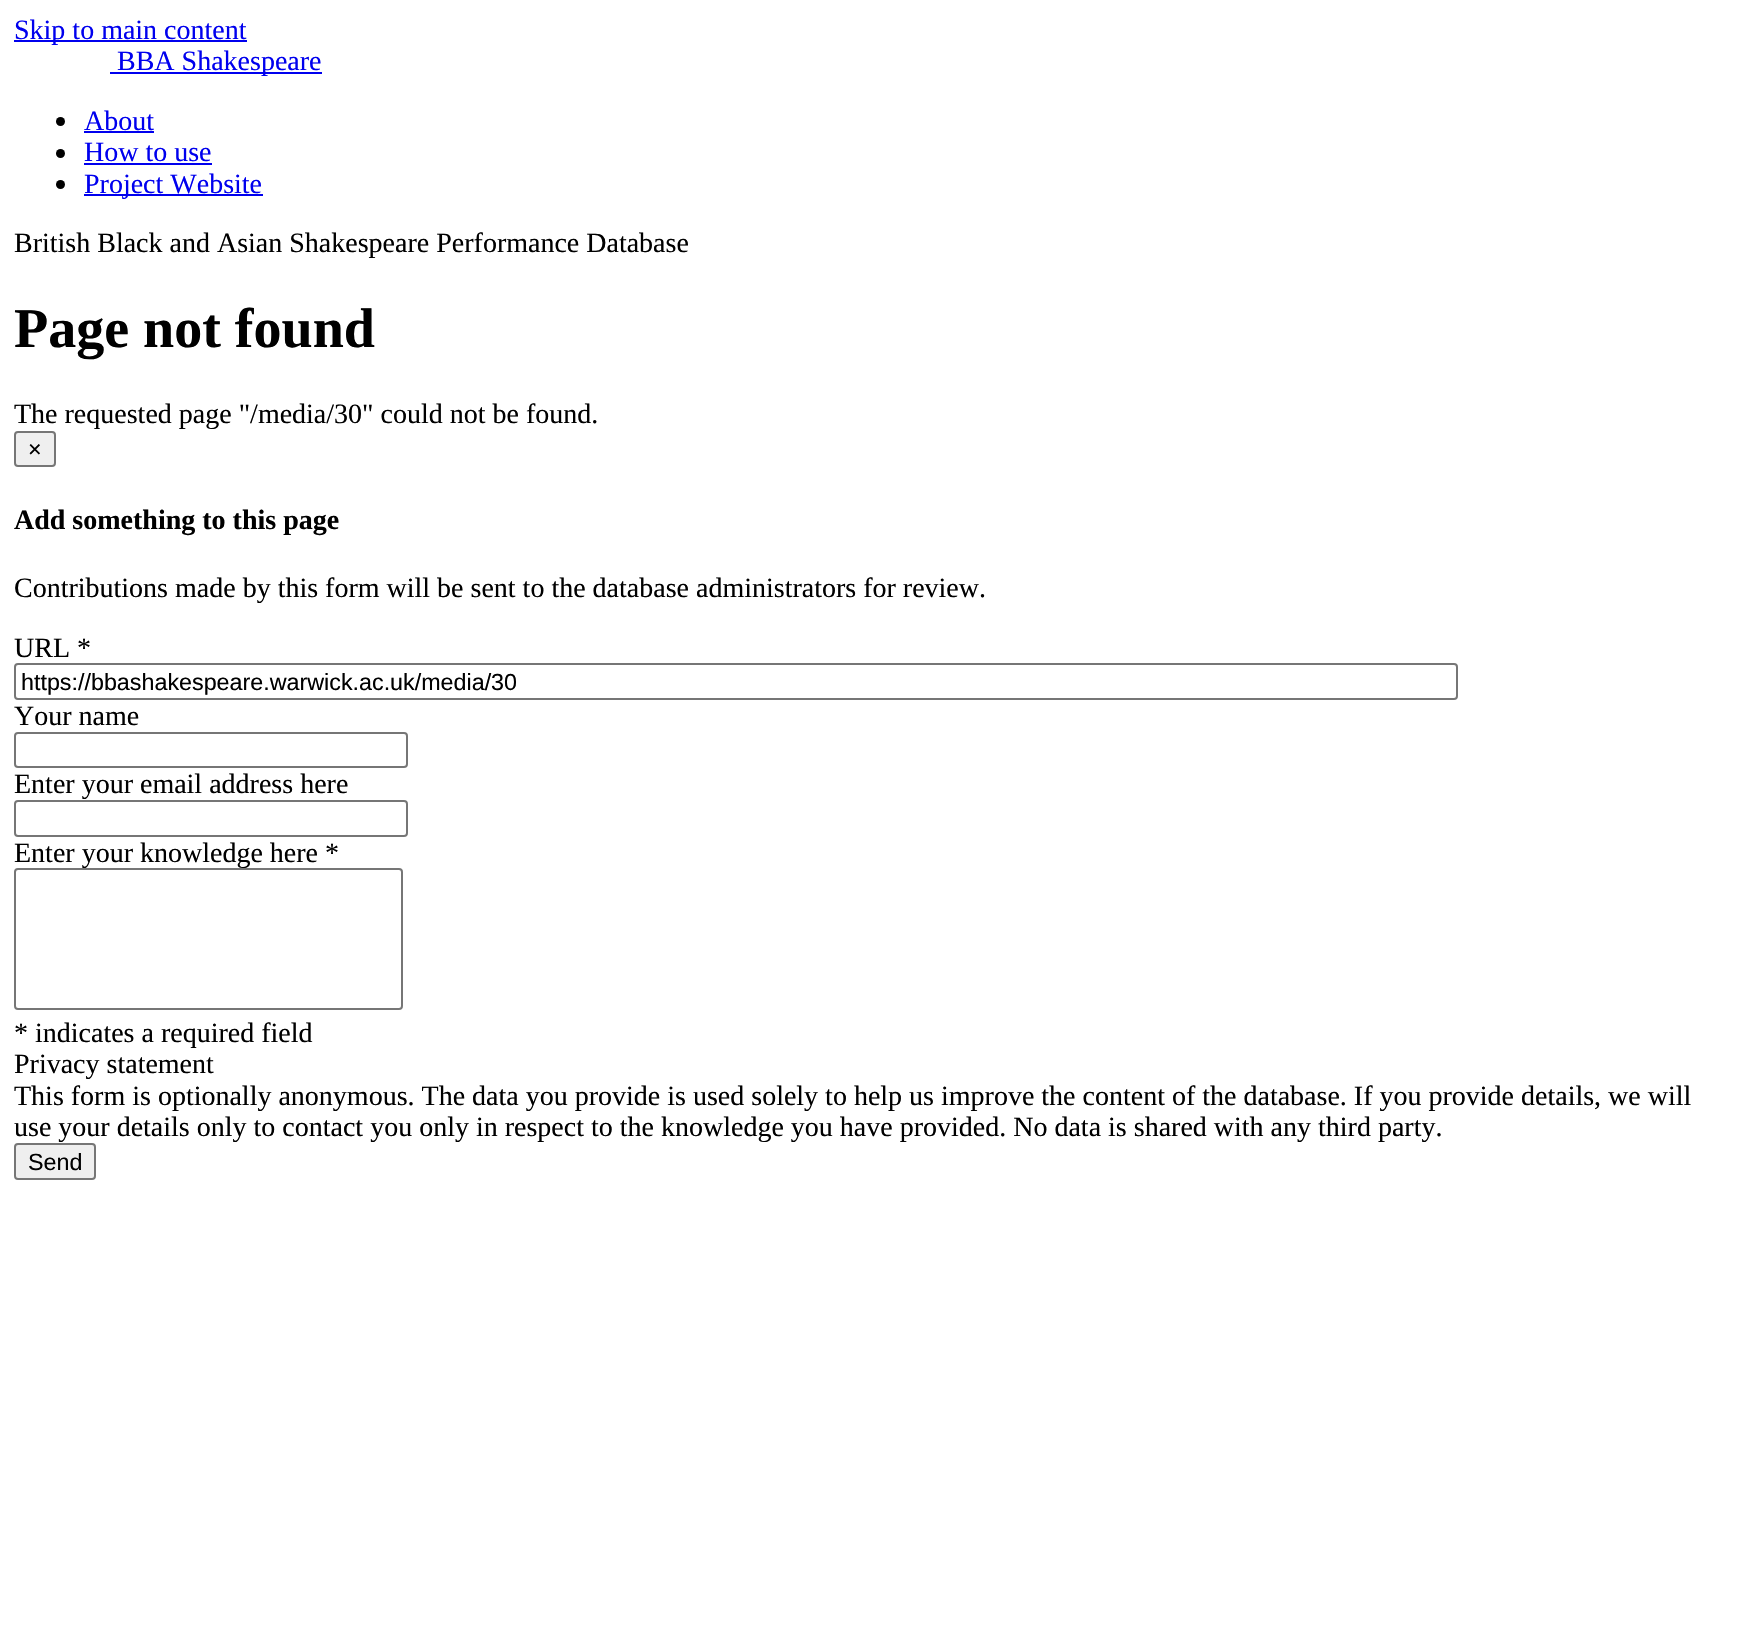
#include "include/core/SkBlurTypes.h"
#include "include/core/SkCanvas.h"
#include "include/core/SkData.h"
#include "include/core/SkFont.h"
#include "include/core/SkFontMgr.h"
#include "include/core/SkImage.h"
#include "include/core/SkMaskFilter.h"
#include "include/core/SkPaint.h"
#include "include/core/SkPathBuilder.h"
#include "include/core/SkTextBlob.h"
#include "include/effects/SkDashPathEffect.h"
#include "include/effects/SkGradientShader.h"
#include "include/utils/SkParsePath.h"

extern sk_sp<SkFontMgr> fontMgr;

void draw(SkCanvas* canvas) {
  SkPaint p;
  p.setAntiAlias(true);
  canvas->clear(SK_ColorWHITE);
  p.setColor(SkColorSetRGB(0, 0, 238));
  canvas->drawRect(SkRect::MakeLTRB(14, 40, 247, 42), p);
  canvas->drawRect(SkRect::MakeLTRB(110, 72, 322, 74), p);
  p.setColor(SK_ColorBLACK);
  canvas->drawCircle(60.5f, 121.5f, 4.5f, p);
  p.setColor(SkColorSetRGB(0, 0, 238));
  canvas->drawRect(SkRect::MakeLTRB(84, 131, 154, 133), p);
  p.setColor(SK_ColorBLACK);
  canvas->drawCircle(60.5f, 153.5f, 4.5f, p);
  p.setColor(SkColorSetRGB(0, 0, 238));
  canvas->drawRect(SkRect::MakeLTRB(84, 163, 212, 165), p);
  p.setColor(SK_ColorBLACK);
  canvas->drawCircle(60.5f, 184.5f, 4.5f, p);
  p.setColor(SkColorSetRGB(0, 0, 238));
  canvas->drawRect(SkRect::MakeLTRB(84, 194, 263, 196), p);
  p.setColor(SkColorSetRGB(239, 239, 239));
  canvas->drawRoundRect(SkRect::MakeLTRB(15, 432, 55, 466), 3, 3, p);
  p.setStyle(SkPaint::kStroke_Style);
  p.setStrokeWidth(2);
  p.setColor(SkColorSetRGB(118, 118, 118));
  canvas->drawRoundRect(SkRect::MakeLTRB(15, 432, 55, 466), 3, 3, p);
  canvas->drawRoundRect(SkRect::MakeLTRB(15, 664, 1457, 699), 3, 3, p);
  canvas->drawRoundRect(SkRect::MakeLTRB(15, 733, 407, 767), 3, 3, p);
  canvas->drawRoundRect(SkRect::MakeLTRB(15, 801, 407, 836), 3, 3, p);
  p.setStyle(SkPaint::kFill_Style);
  p.setColor(SkColorSetRGB(239, 239, 239));
  canvas->drawRoundRect(SkRect::MakeLTRB(15, 1144, 95, 1179), 3, 3, p);
  p.setStyle(SkPaint::kStroke_Style);
  p.setColor(SkColorSetRGB(118, 118, 118));
  canvas->drawRoundRect(SkRect::MakeLTRB(15, 1144, 95, 1179), 3, 3, p);
  SkFont font1(fontMgr->matchFamilyStyle("Liberation Serif", SkFontStyle::Normal()), 28);
  font1.setSubpixel(true);
  p.setStyle(SkPaint::kFill_Style);
  p.setColor(SkColorSetRGB(0, 0, 238));
  canvas->drawString("Skip to main content", 14, 39, font1, p);
  canvas->drawString("BBA Shakespeare", 117, 70, font1, p);
  canvas->drawString("About", 84, 130, font1, p);
  canvas->drawString("How to use", 84, 161, font1, p);
  canvas->drawString("Project Website", 84, 193, font1, p);
  p.setColor(SK_ColorBLACK);
  canvas->drawString("British Black and Asian Shakespeare Performance Database", 14, 252, font1, p);
  SkFont font2(fontMgr->matchFamilyStyle("Liberation Serif", SkFontStyle::Bold()), 56);
  font2.setSubpixel(true);
  canvas->drawString("Page not found", 14, 347, font2, p);
  canvas->drawString("The requested page \"/media/30\" could not be found.", 14, 423, font1, p);
  SkFont font3(fontMgr->matchFamilyStyle("Liberation Sans", SkFontStyle::Normal()), 23.3f);
  font3.setSubpixel(true);
  canvas->drawString("×", 28, 457, font3, p);
  SkFont font4(fontMgr->matchFamilyStyle("Liberation Serif", SkFontStyle::Bold()), 28);
  font4.setSubpixel(true);
  canvas->drawString("Add something to this page", 14, 529, font4, p);
  canvas->drawString("Contributions made by this form will be sent to the database administrators for review.", 14, 597, font1, p);
  canvas->drawString("URL *", 14, 657, font1, p);
  canvas->drawString("https://bbashakespeare.warwick.ac.uk/media/30", 21, 690, font3, p);
  canvas->drawString("Your name", 14, 725, font1, p);
  canvas->drawString("Enter your email address here", 14, 793, font1, p);
  canvas->drawString("Enter your knowledge here *", 14, 862, font1, p);
  p.setColor(SK_ColorWHITE);
  canvas->drawRoundRect(SkRect::MakeLTRB(15, 869, 402, 1009), 3, 3, p);
  p.setStyle(SkPaint::kStroke_Style);
  p.setColor(SkColorSetRGB(118, 118, 118));
  canvas->drawRoundRect(SkRect::MakeLTRB(15, 869, 402, 1009), 3, 3, p);
  p.setStyle(SkPaint::kFill_Style);
  p.setColor(SK_ColorBLACK);
  canvas->drawString("* indicates a required field", 14, 1042, font1, p);
  canvas->drawString("Privacy statement", 14, 1073, font1, p);
  canvas->drawString("This form is optionally anonymous. The data you provide is used solely to help us improve the content of the database. If you provide details, we will", 14, 1105, font1, p);
  canvas->drawString("use your details only to contact you only in respect to the knowledge you have provided. No data is shared with any third party.", 14, 1136, font1, p);
  canvas->drawString("Send", 28, 1170, font3, p);
}
